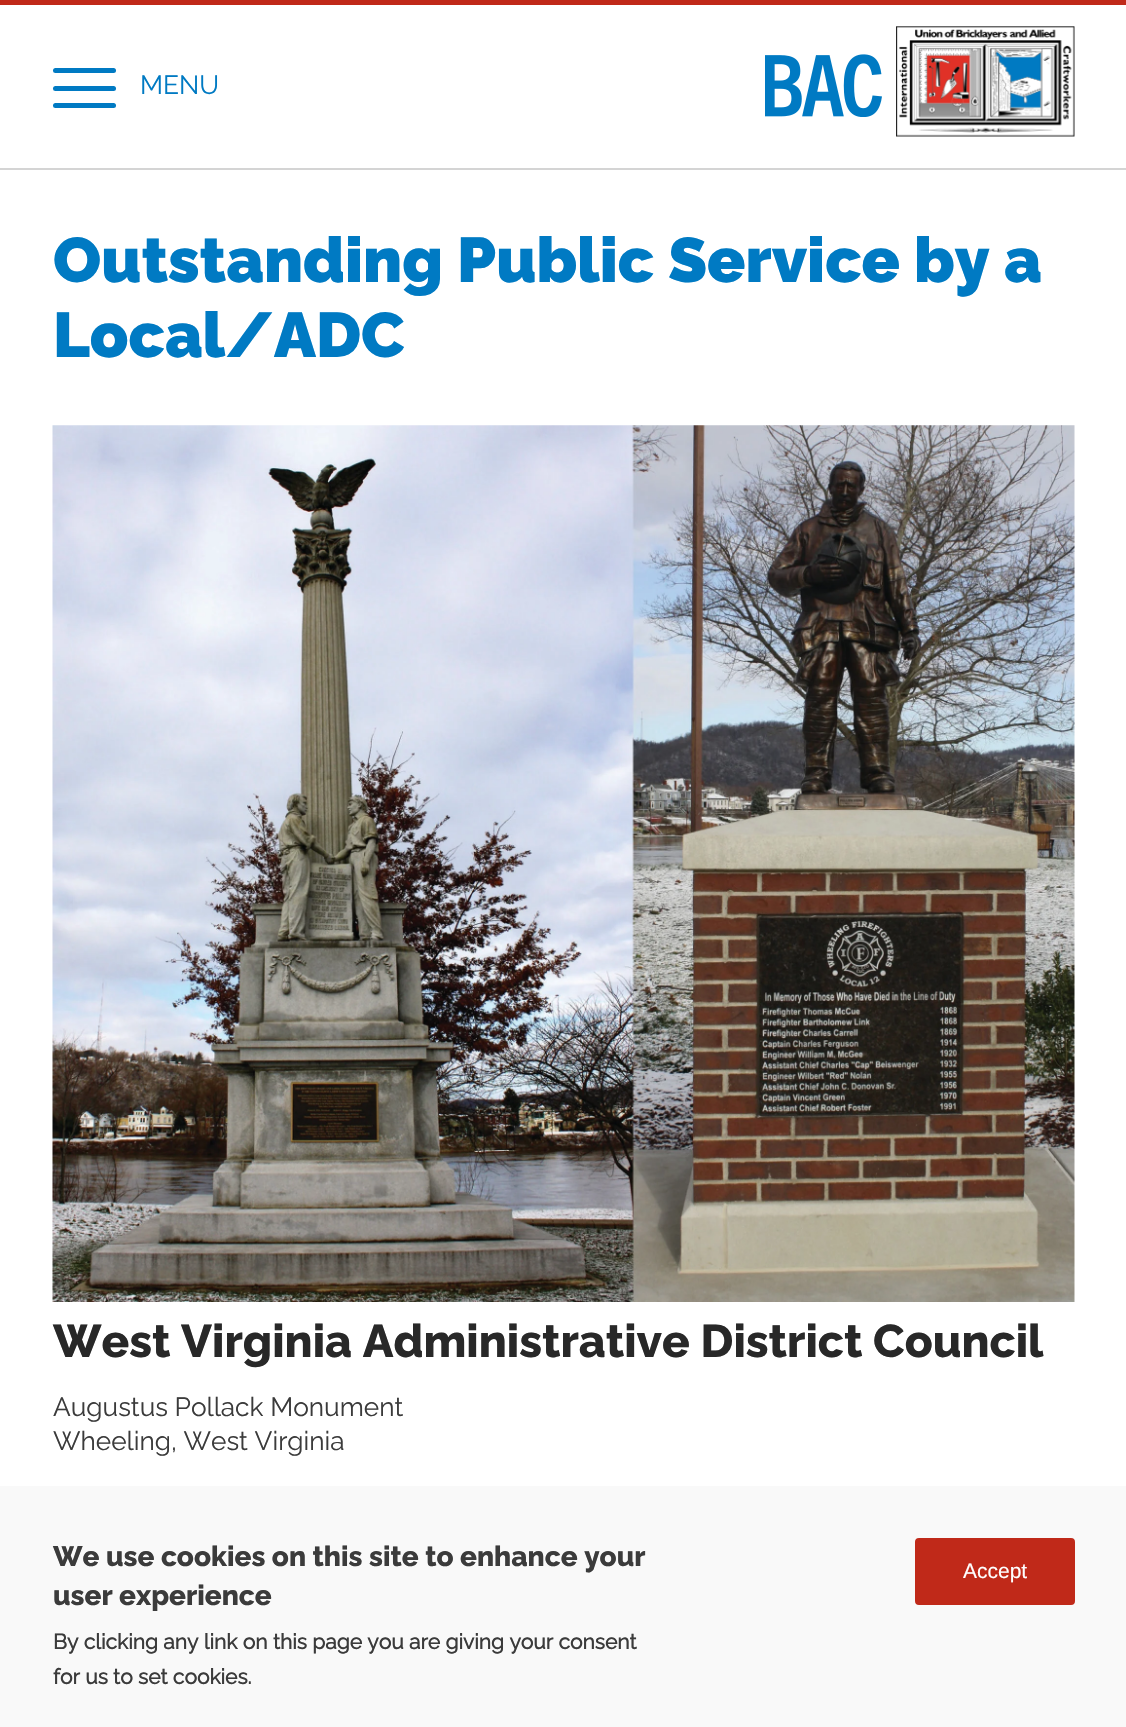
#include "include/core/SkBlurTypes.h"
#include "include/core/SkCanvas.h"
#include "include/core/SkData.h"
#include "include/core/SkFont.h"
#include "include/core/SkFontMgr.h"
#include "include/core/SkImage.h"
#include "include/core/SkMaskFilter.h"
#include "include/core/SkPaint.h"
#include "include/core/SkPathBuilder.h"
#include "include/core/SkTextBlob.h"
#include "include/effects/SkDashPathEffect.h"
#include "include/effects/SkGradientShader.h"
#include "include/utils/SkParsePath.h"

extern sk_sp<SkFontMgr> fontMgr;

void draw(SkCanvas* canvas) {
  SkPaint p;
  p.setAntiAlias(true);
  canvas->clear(SK_ColorWHITE);
  p.setColor(SkColorSetRGB(192, 41, 25));
  canvas->drawRect(SkRect::MakeLTRB(0, 0, 1126, 5), p);
  p.setColor(SkColorSetRGB(212, 212, 212));
  canvas->drawRect(SkRect::MakeLTRB(0, 168, 1126, 170), p);
  p.setColor(SkColorSetRGB(0, 122, 195));
  canvas->drawRoundRect(SkRect::MakeLTRB(53, 86, 116, 91), 2.5f, 2.5f, p);
  canvas->drawRoundRect(SkRect::MakeLTRB(53, 68, 116, 73), 2.5f, 2.5f, p);
  canvas->drawRoundRect(SkRect::MakeLTRB(53, 103, 116, 108), 2.5f, 2.5f, p);
  canvas->drawImageRect(SkImages::DeferredFromEncodedData(SkData::MakeFromFileName("images/1.png")), SkRect::MakeLTRB(765, 54, 882, 117), SkSamplingOptions());
  canvas->drawImageRect(SkImages::DeferredFromEncodedData(SkData::MakeFromFileName("images/2.png")), SkRect::MakeLTRB(896, 26, 1075, 137), SkSamplingOptions());
  canvas->drawImageRect(SkImages::DeferredFromEncodedData(SkData::MakeFromFileName("images/3.png")), SkRect::MakeLTRB(52, 425, 1075, 1302), SkSamplingOptions());
  p.setColor(SkColorSetRGB(249, 249, 249));
  canvas->drawRect(SkRect::MakeLTRB(0, 1486, 1126, 1727), p);
  p.setColor(SkColorSetRGB(192, 41, 25));
  canvas->drawRoundRect(SkRect::MakeLTRB(917, 1540, 1073, 1603), 2, 2, p);
  p.setStyle(SkPaint::kStroke_Style);
  p.setStrokeWidth(4);
  canvas->drawRoundRect(SkRect::MakeLTRB(917, 1540, 1073, 1603), 2, 2, p);
  SkFont font1(fontMgr->matchFamilyStyle("Raleway", SkFontStyle::Normal()), 26.25f);
  font1.setSubpixel(true);
  p.setStyle(SkPaint::kFill_Style);
  p.setColor(SkColorSetRGB(0, 122, 195));
  canvas->drawString("MENU", 140, 94, font1, p);
  SkFont font2(fontMgr->matchFamilyStyle("Raleway", SkFontStyle(900, SkFontStyle::kNormal_Width, SkFontStyle::kUpright_Slant)), 63);
  font2.setSubpixel(true);
  canvas->drawString("Outstanding Public Service by a", 53, 282, font2, p);
  canvas->drawString("Local/ADC", 53, 357, font2, p);
  SkFont font3(fontMgr->matchFamilyStyle("Raleway", SkFontStyle(800, SkFontStyle::kNormal_Width, SkFontStyle::kUpright_Slant)), 45.9f);
  font3.setSubpixel(true);
  p.setColor(SkColorSetRGB(40, 40, 40));
  canvas->drawString("West Virginia Administrative District Council", 53, 1357, font3, p);
  p.setColor(SkColorSetRGB(59, 59, 59));
  canvas->drawString("Augustus Pollack Monument", 53, 1416, font1, p);
  canvas->drawString("Wheeling, West Virginia", 53, 1450, font1, p);
  SkFont font4(fontMgr->matchFamilyStyle("Raleway", SkFontStyle(800, SkFontStyle::kNormal_Width, SkFontStyle::kUpright_Slant)), 28);
  font4.setSubpixel(true);
  canvas->drawString("We use cookies on this site to enhance your", 53, 1566, font4, p);
  canvas->drawString("user experience", 53, 1605, font4, p);
  SkFont font5(fontMgr->matchFamilyStyle("Raleway", SkFontStyle::Bold()), 21);
  font5.setSubpixel(true);
  canvas->drawString("By clicking any link on this page you are giving your consent", 53, 1649, font5, p);
  canvas->drawString("for us to set cookies.", 53, 1684, font5, p);
  SkFont font6(fontMgr->matchFamilyStyle("Liberation Sans", SkFontStyle::Normal()), 21);
  font6.setSubpixel(true);
  p.setColor(SK_ColorWHITE);
  canvas->drawString("Accept", 963, 1578, font6, p);
}
